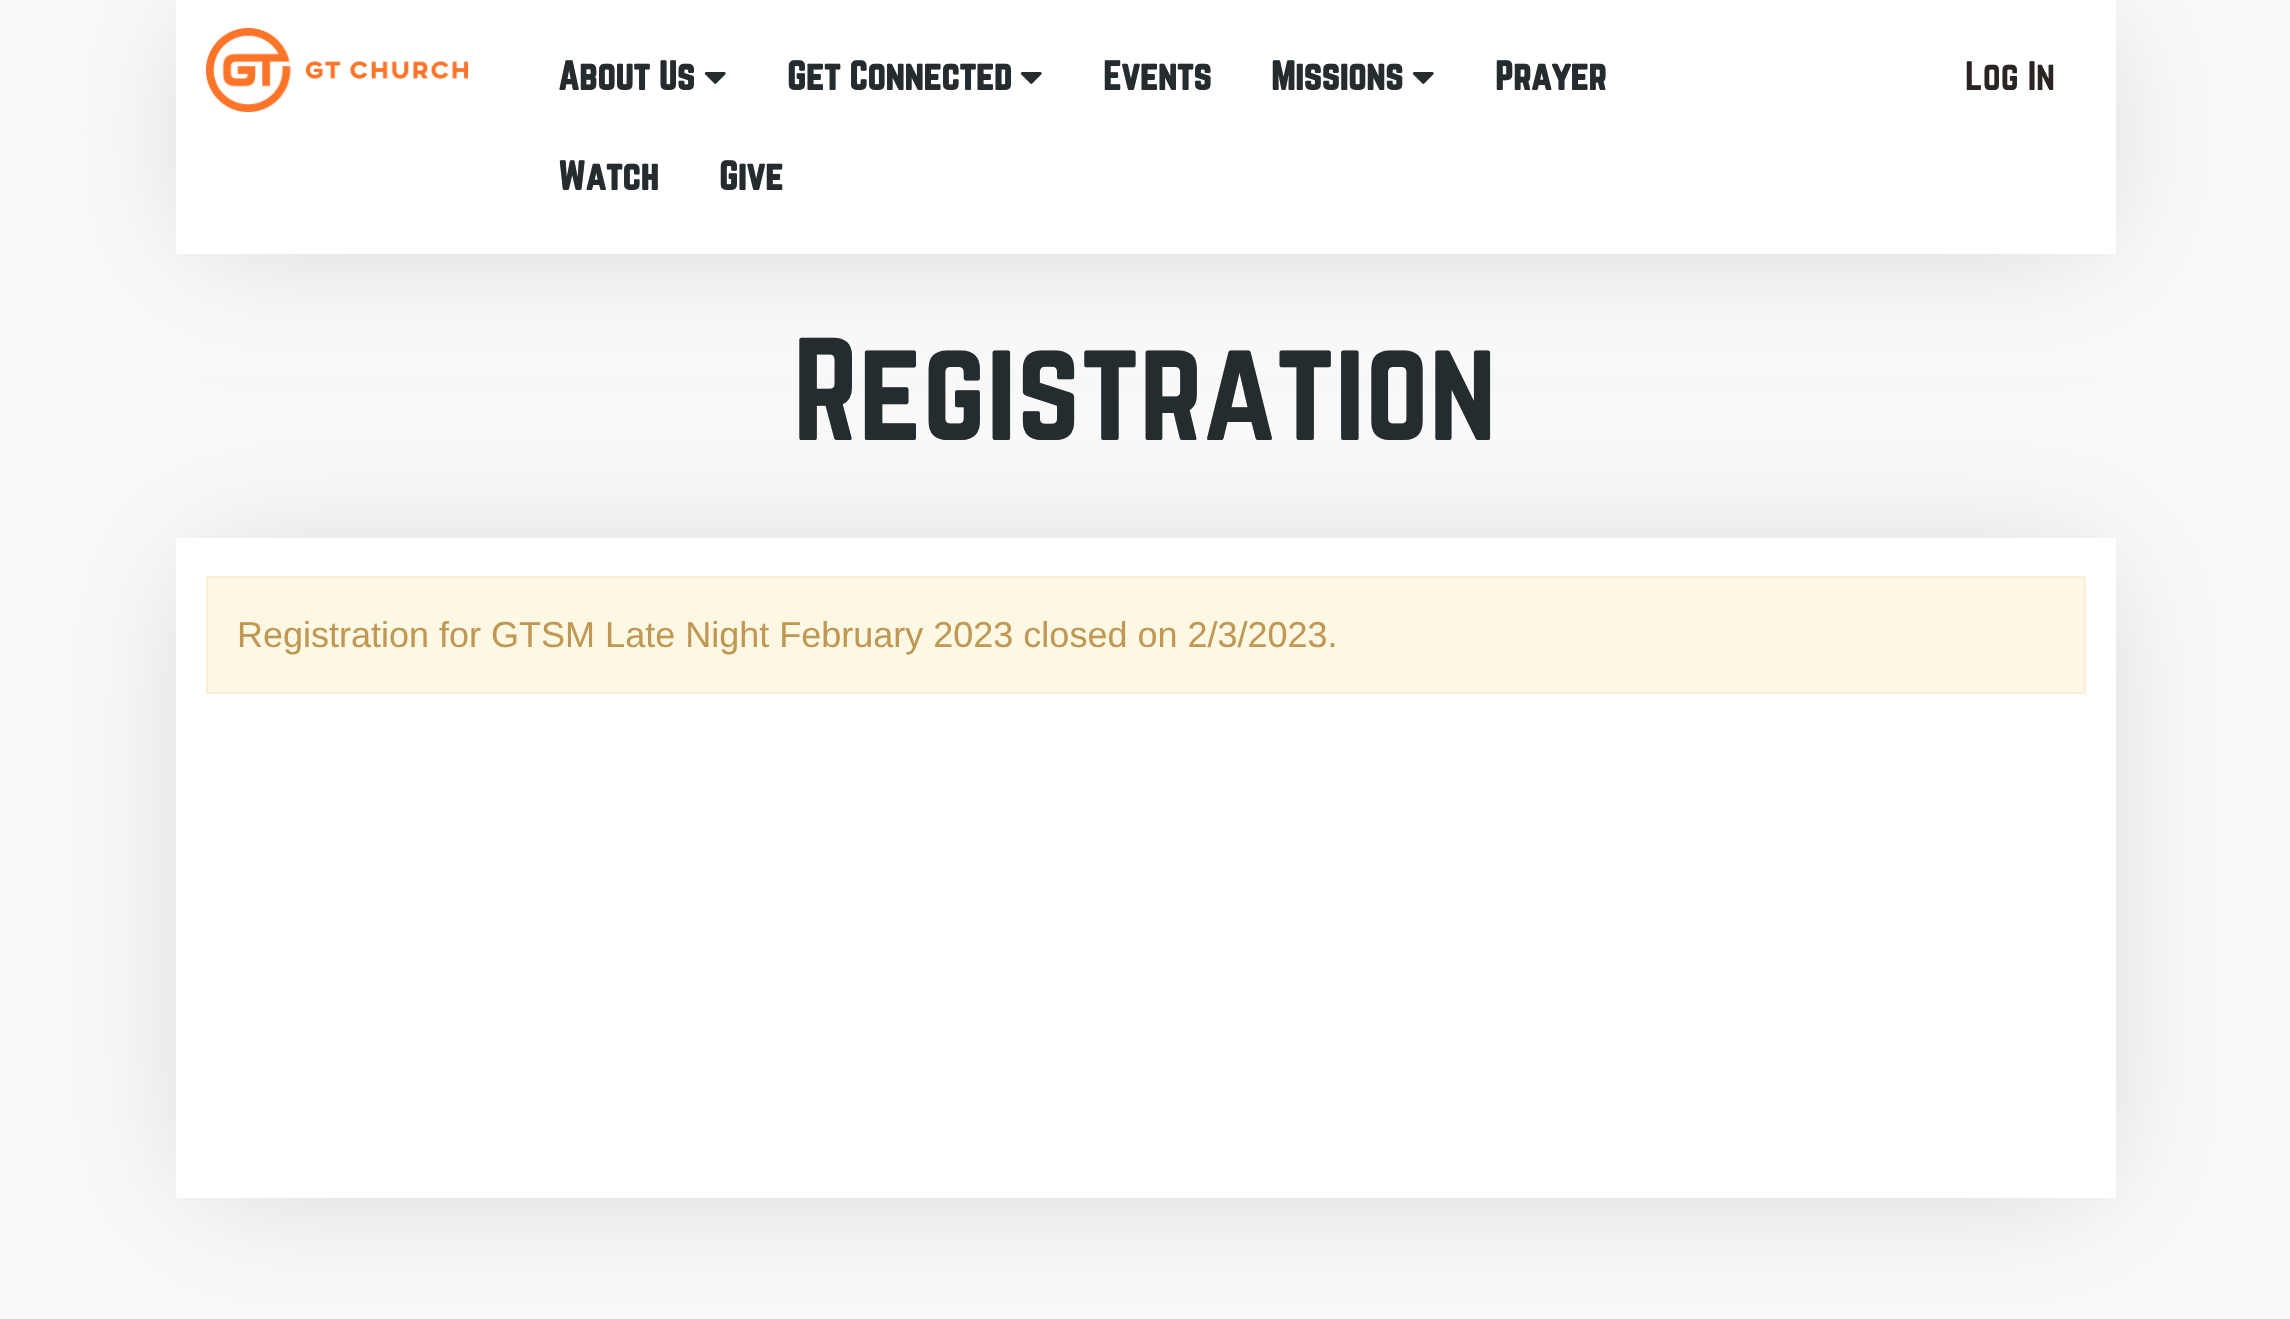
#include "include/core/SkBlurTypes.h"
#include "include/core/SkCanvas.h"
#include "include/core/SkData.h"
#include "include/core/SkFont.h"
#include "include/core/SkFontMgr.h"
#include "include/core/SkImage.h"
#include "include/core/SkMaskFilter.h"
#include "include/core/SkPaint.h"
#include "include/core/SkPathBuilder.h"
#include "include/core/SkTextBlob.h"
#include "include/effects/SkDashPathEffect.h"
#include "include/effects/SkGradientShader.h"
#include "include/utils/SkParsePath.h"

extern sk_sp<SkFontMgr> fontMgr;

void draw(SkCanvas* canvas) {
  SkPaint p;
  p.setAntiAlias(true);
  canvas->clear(SkColorSetRGB(250, 250, 250));
  p.setColor(SkColorSetARGB(38, 0, 0, 0));
  p.setMaskFilter(SkMaskFilter::MakeBlur(kNormal_SkBlurStyle, 64));
  canvas->drawRect(SkRect::MakeLTRB(194, 24, 2098, 242), p);
  p.setMaskFilter(nullptr);
  p.setColor(SK_ColorWHITE);
  canvas->drawRect(SkRect::MakeLTRB(176, 0, 2116, 254), p);
  canvas->drawImageRect(SkImages::DeferredFromEncodedData(SkData::MakeFromFileName("images/1.png")), SkRect::MakeLTRB(206, 28, 468, 112), SkSamplingOptions());
  canvas->drawImageRect(SkImages::DeferredFromEncodedData(SkData::MakeFromFileName("images/2.png")), SkRect::MakeLTRB(704, 72, 726, 84), SkSamplingOptions());
  canvas->drawImageRect(SkImages::DeferredFromEncodedData(SkData::MakeFromFileName("images/2.png")), SkRect::MakeLTRB(1020, 72, 1042, 84), SkSamplingOptions());
  canvas->drawImageRect(SkImages::DeferredFromEncodedData(SkData::MakeFromFileName("images/2.png")), SkRect::MakeLTRB(1412, 72, 1434, 84), SkSamplingOptions());
  p.setColor(SkColorSetARGB(38, 0, 0, 0));
  p.setMaskFilter(SkMaskFilter::MakeBlur(kNormal_SkBlurStyle, 64));
  canvas->drawRect(SkRect::MakeLTRB(194, 562, 2098, 1186), p);
  p.setMaskFilter(nullptr);
  p.setColor(SK_ColorWHITE);
  canvas->drawRect(SkRect::MakeLTRB(176, 538, 2116, 1198), p);
  p.setColor(SkColorSetRGB(252, 248, 227));
  canvas->drawRect(SkRect::MakeLTRB(207, 577, 2085, 693), p);
  p.setStyle(SkPaint::kStroke_Style);
  p.setStrokeWidth(2);
  p.setColor(SkColorSetRGB(251, 238, 213));
  canvas->drawRect(SkRect::MakeLTRB(207, 577, 2085, 693), p);
  SkFont font1(fontMgr->matchFamilyStyle("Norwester", SkFontStyle::Bold()), 36);
  font1.setSubpixel(true);
  p.setStyle(SkPaint::kFill_Style);
  p.setColor(SkColorSetRGB(37, 44, 48));
  canvas->drawString("About Us", 558, 90, font1, p);
  canvas->drawString("Get Connected", 787, 90, font1, p);
  canvas->drawString("Events", 1103, 90, font1, p);
  canvas->drawString("Missions", 1271, 90, font1, p);
  canvas->drawString("Prayer", 1495, 90, font1, p);
  canvas->drawString("Watch", 558, 190, font1, p);
  canvas->drawString("Give", 719, 190, font1, p);
  SkFont font2(fontMgr->matchFamilyStyle("Norwester", SkFontStyle::Normal()), 36);
  font2.setSubpixel(true);
  p.setColor(SkColorSetRGB(43, 36, 34));
  canvas->drawString("Log In", 1965, 90, font2, p);
  SkFont font3(fontMgr->matchFamilyStyle("Norwester", SkFontStyle::Normal()), 128);
  font3.setSubpixel(true);
  p.setColor(SkColorSetRGB(37, 44, 48));
  canvas->drawString("Registration", 793, 440, font3, p);
  SkFont font4(fontMgr->matchFamilyStyle("Liberation Sans", SkFontStyle::Normal()), 36);
  font4.setSubpixel(true);
  p.setColor(SkColorSetRGB(192, 152, 83));
  canvas->drawString("Registration for GTSM Late Night February 2023 closed on 2/3/2023.", 237, 647, font4, p);
}
